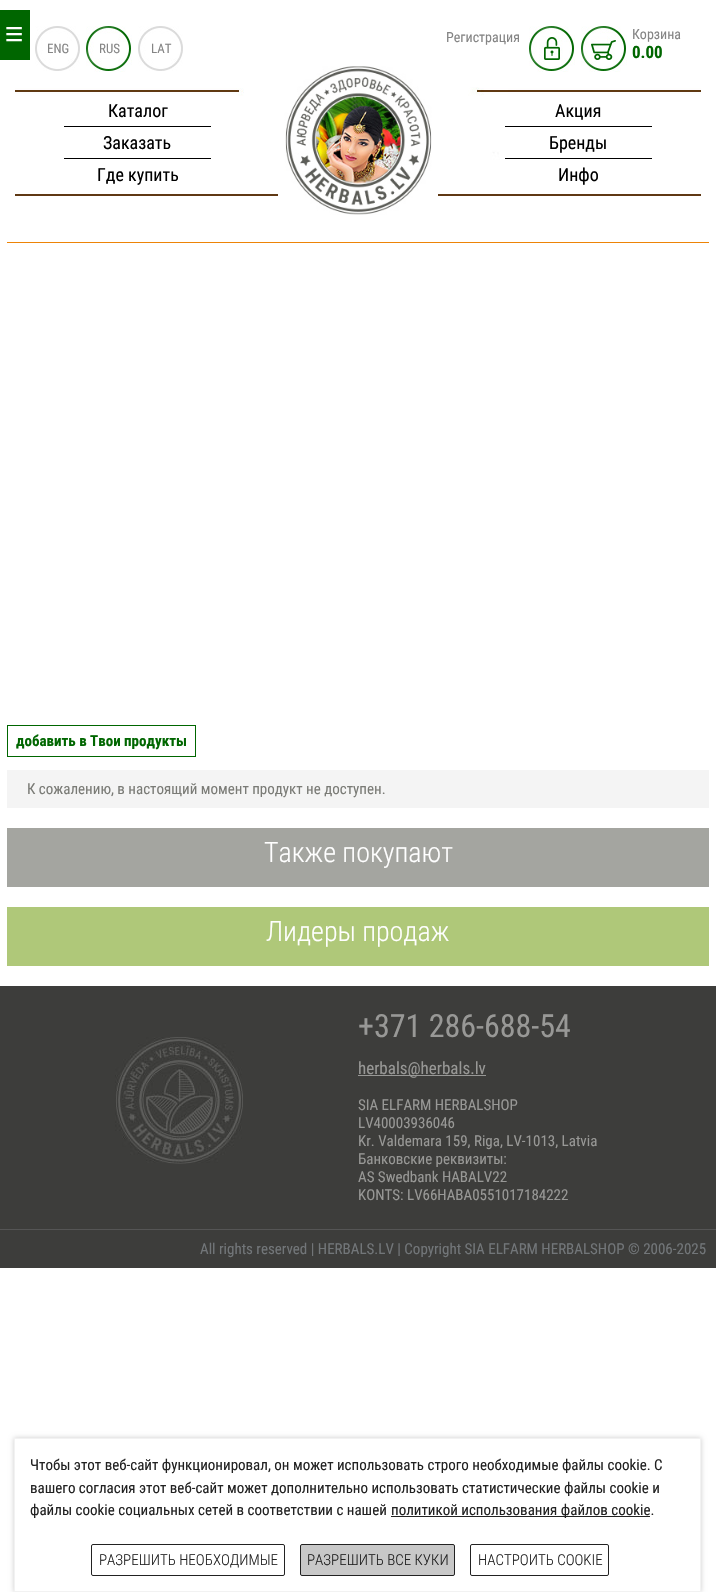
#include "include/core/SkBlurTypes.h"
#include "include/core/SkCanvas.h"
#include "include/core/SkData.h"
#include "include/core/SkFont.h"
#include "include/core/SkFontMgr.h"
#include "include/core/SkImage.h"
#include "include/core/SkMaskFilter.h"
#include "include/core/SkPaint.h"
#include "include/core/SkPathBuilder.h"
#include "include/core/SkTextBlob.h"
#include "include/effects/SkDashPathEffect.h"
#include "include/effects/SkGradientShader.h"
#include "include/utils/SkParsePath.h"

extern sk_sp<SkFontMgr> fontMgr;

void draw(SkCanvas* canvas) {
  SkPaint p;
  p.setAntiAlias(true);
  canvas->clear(SK_ColorWHITE);
  p.setColor(SkColorSetRGB(0, 102, 0));
  canvas->drawRect(SkRect::MakeLTRB(0, 10, 30, 60), p);
  canvas->drawImageRect(SkImages::DeferredFromEncodedData(SkData::MakeFromFileName("images/1.png")), SkRect::MakeLTRB(15, 87, 701, 196), SkSamplingOptions());
  canvas->drawImageRect(SkImages::DeferredFromEncodedData(SkData::MakeFromFileName("images/2.png")), SkRect::MakeLTRB(35, 26, 80, 71), SkSamplingOptions());
  canvas->drawImageRect(SkImages::DeferredFromEncodedData(SkData::MakeFromFileName("images/3.png")), SkRect::MakeLTRB(86, 26, 132, 72), SkSamplingOptions());
  canvas->drawImageRect(SkImages::DeferredFromEncodedData(SkData::MakeFromFileName("images/2.png")), SkRect::MakeLTRB(138, 26, 183, 71), SkSamplingOptions());
  canvas->drawImageRect(SkImages::DeferredFromEncodedData(SkData::MakeFromFileName("images/3.png")), SkRect::MakeLTRB(529, 26, 575, 72), SkSamplingOptions());
  canvas->drawImageRect(SkImages::DeferredFromEncodedData(SkData::MakeFromFileName("images/4.png")), SkRect::MakeLTRB(539, 36, 564, 60), SkSamplingOptions());
  canvas->drawImageRect(SkImages::DeferredFromEncodedData(SkData::MakeFromFileName("images/3.png")), SkRect::MakeLTRB(581, 26, 627, 72), SkSamplingOptions());
  canvas->drawImageRect(SkImages::DeferredFromEncodedData(SkData::MakeFromFileName("images/5.png")), SkRect::MakeLTRB(591, 36, 616, 60), SkSamplingOptions());
  p.setColor(SK_ColorBLACK);
  canvas->drawRect(SkRect::MakeLTRB(64, 126, 211, 127), p);
  canvas->drawRect(SkRect::MakeLTRB(64, 158, 211, 159), p);
  canvas->drawImageRect(SkImages::DeferredFromEncodedData(SkData::MakeFromFileName("images/6.png")), SkRect::MakeLTRB(278, 66, 438, 215), SkSamplingOptions());
  canvas->drawRect(SkRect::MakeLTRB(505, 126, 652, 127), p);
  canvas->drawRect(SkRect::MakeLTRB(505, 158, 652, 159), p);
  p.setColor(SkColorSetRGB(237, 132, 7));
  canvas->drawRect(SkRect::MakeLTRB(7, 242, 709, 243), p);
  p.setStyle(SkPaint::kStroke_Style);
  p.setStrokeWidth(1);
  p.setColor(SkColorSetRGB(0, 102, 0));
  canvas->drawRect(SkRect::MakeLTRB(7.5f, 725.5f, 195.5f, 756.5f), p);
  p.setStyle(SkPaint::kFill_Style);
  p.setColor(SkColorSetRGB(244, 244, 244));
  canvas->drawRect(SkRect::MakeLTRB(7, 770, 709, 808), p);
  p.setColor(SkColorSetRGB(164, 165, 160));
  canvas->drawRect(SkRect::MakeLTRB(7, 828, 709, 829), p);
  canvas->drawRect(SkRect::MakeLTRB(708, 828, 709, 877), p);
  canvas->drawRect(SkRect::MakeLTRB(8, 877, 709, 887), p);
  canvas->drawRect(SkRect::MakeLTRB(7, 828, 8, 887), p);
  canvas->drawRect(SkRect::MakeLTRB(8, 829, 708, 877), p);
  p.setColor(SkColorSetRGB(175, 200, 121));
  canvas->drawRect(SkRect::MakeLTRB(7, 907, 709, 908), p);
  canvas->drawRect(SkRect::MakeLTRB(708, 907, 709, 956), p);
  canvas->drawRect(SkRect::MakeLTRB(8, 956, 709, 966), p);
  canvas->drawRect(SkRect::MakeLTRB(7, 907, 8, 966), p);
  canvas->drawRect(SkRect::MakeLTRB(8, 908, 708, 956), p);
  p.setColor(SkColorSetRGB(61, 61, 59));
  canvas->drawRect(SkRect::MakeLTRB(0, 986, 716, 1268), p);
  p.setColor(SkColorSetRGB(85, 85, 85));
  canvas->drawRect(SkRect::MakeLTRB(0, 1229, 716, 1230), p);
  canvas->drawImageRect(SkImages::DeferredFromEncodedData(SkData::MakeFromFileName("images/7.png")), SkRect::MakeLTRB(115, 1037, 243, 1164), SkSamplingOptions());
  p.setColor(SkColorSetRGB(152, 152, 150));
  canvas->drawRect(SkRect::MakeLTRB(358, 1075, 486, 1076), p);
  p.setColor(SkColorSetRGB(204, 204, 204));
  p.setMaskFilter(SkMaskFilter::MakeBlur(kNormal_SkBlurStyle, 2.5f));
  canvas->drawRect(SkRect::MakeLTRB(14, 1438, 701, 1592), p);
  p.setMaskFilter(nullptr);
  p.setColor(SK_ColorWHITE);
  canvas->drawRect(SkRect::MakeLTRB(14.5f, 1438.5f, 700.5f, 1591.5f), p);
  p.setStyle(SkPaint::kStroke_Style);
  p.setColor(SkColorSetRGB(242, 242, 242));
  canvas->drawRect(SkRect::MakeLTRB(14.5f, 1438.5f, 700.5f, 1591.5f), p);
  p.setStyle(SkPaint::kFill_Style);
  p.setColor(SkColorSetRGB(34, 34, 34));
  canvas->drawRect(SkRect::MakeLTRB(391, 1516, 650, 1517), p);
  p.setStyle(SkPaint::kStroke_Style);
  canvas->drawRoundRect(SkRect::MakeLTRB(91.5f, 1544.5f, 284.5f, 1575.5f), 1.5f, 1.5f, p);
  p.setStyle(SkPaint::kFill_Style);
  p.setColor(SkColorSetRGB(200, 200, 200));
  canvas->drawRoundRect(SkRect::MakeLTRB(300.5f, 1544.5f, 454.5f, 1575.5f), 1.5f, 1.5f, p);
  p.setStyle(SkPaint::kStroke_Style);
  p.setColor(SkColorSetRGB(34, 34, 34));
  canvas->drawRoundRect(SkRect::MakeLTRB(300.5f, 1544.5f, 454.5f, 1575.5f), 1.5f, 1.5f, p);
  canvas->drawRoundRect(SkRect::MakeLTRB(470.5f, 1544.5f, 608.5f, 1575.5f), 1.5f, 1.5f, p);
  SkFont font1(fontMgr->matchFamilyStyle("Roboto Condensed", SkFontStyle(300, SkFontStyle::kNormal_Width, SkFontStyle::kUpright_Slant)), 42);
  font1.setSubpixel(true);
  p.setStyle(SkPaint::kFill_Style);
  p.setColor(SK_ColorWHITE);
  canvas->drawString("_", 6, 27, font1, p);
  canvas->drawString("_", 6, 33, font1, p);
  canvas->drawString("_", 6, 39, font1, p);
  SkFont font2(fontMgr->matchFamilyStyle("Roboto Condensed", SkFontStyle::Normal()), 13);
  font2.setSubpixel(true);
  p.setColor(SkColorSetRGB(133, 133, 133));
  canvas->drawString("ENG", 47, 53, font2, p);
  canvas->drawString("RUS", 99, 53, font2, p);
  canvas->drawString("LAT", 151, 53, font2, p);
  SkFont font3(fontMgr->matchFamilyStyle("Roboto Condensed", SkFontStyle::Normal()), 14);
  font3.setSubpixel(true);
  canvas->drawString("Регистрация", 446, 42, font3, p);
  canvas->drawString("Корзина", 632, 39, font3, p);
  SkFont font4(fontMgr->matchFamilyStyle("Roboto Condensed", SkFontStyle::Bold()), 17);
  font4.setSubpixel(true);
  p.setColor(SkColorSetRGB(0, 102, 0));
  canvas->drawString("0.00", 632, 58, font4, p);
  SkFont font5(fontMgr->matchFamilyStyle("Roboto Condensed", SkFontStyle::Normal()), 18);
  font5.setSubpixel(true);
  p.setColor(SK_ColorBLACK);
  canvas->drawString("Каталог", 108, 117, font5, p);
  canvas->drawString("Заказать", 103, 149, font5, p);
  canvas->drawString("Где купить", 97, 181, font5, p);
  canvas->drawString("Акция", 555, 117, font5, p);
  canvas->drawString("Бренды", 549, 149, font5, p);
  canvas->drawString("Инфо", 558, 181, font5, p);
  SkFont font6(fontMgr->matchFamilyStyle("Roboto Condensed", SkFontStyle::Bold()), 15);
  font6.setSubpixel(true);
  p.setColor(SkColorSetRGB(0, 102, 0));
  canvas->drawString("добавить в Твои продукты", 16, 746, font6, p);
  SkFont font7(fontMgr->matchFamilyStyle("Roboto Condensed", SkFontStyle::Normal()), 15);
  font7.setSubpixel(true);
  p.setColor(SkColorSetRGB(122, 123, 118));
  canvas->drawString("К сожалению, в настоящий момент продукт не доступен.", 27, 794, font7, p);
  SkFont font8(fontMgr->matchFamilyStyle("Roboto Condensed", SkFontStyle(300, SkFontStyle::kNormal_Width, SkFontStyle::kUpright_Slant)), 28);
  font8.setSubpixel(true);
  p.setColor(SK_ColorWHITE);
  canvas->drawString("Также покупают", 264, 862, font8, p);
  canvas->drawString("Лидеры продаж", 266, 941, font8, p);
  SkFont font9(fontMgr->matchFamilyStyle("Roboto Condensed", SkFontStyle::Normal()), 32);
  font9.setSubpixel(true);
  p.setColor(SkColorSetRGB(152, 152, 150));
  canvas->drawString("+371 286-688-54", 358, 1037, font9, p);
  SkFont font10(fontMgr->matchFamilyStyle("Roboto Condensed", SkFontStyle::Normal()), 17);
  font10.setSubpixel(true);
  canvas->drawString("herbals@herbals.lv", 358, 1074, font10, p);
  canvas->drawString("SIA ELFARM HERBALSHOP", 358, 1110, font7, p);
  canvas->drawString("LV40003936046", 358, 1128, font7, p);
  canvas->drawString("Kr. Valdemara 159, Riga, LV-1013, Latvia", 358, 1146, font7, p);
  canvas->drawString("Банковские реквизиты:", 358, 1164, font7, p);
  canvas->drawString("AS Swedbank HABALV22", 358, 1182, font7, p);
  canvas->drawString("KONTS: LV66HABA0551017184222", 358, 1200, font7, p);
  p.setColor(SkColorSetRGB(114, 118, 121));
  canvas->drawString("All rights reserved | HERBALS.LV | Copyright SIA ELFARM HERBALSHOP © 2006-2025", 200, 1254, font7, p);
  p.setColor(SkColorSetRGB(34, 34, 34));
  canvas->drawString("Чтобы этот веб-сайт функционировал, он может использовать строго необходимые файлы cookie. С", 30, 1470, font7, p);
  canvas->drawString("вашего согласия этот веб-сайт может дополнительно использовать статистические файлы cookie и", 30, 1493, font7, p);
  canvas->drawString("файлы cookie социальных сетей в соответствии с нашей", 30, 1515, font7, p);
  canvas->drawString("политикой использования файлов cookie.", 391, 1515, font7, p);
  SkFont font11(fontMgr->matchFamilyStyle("Roboto Condensed", SkFontStyle(300, SkFontStyle::kNormal_Width, SkFontStyle::kUpright_Slant)), 15);
  font11.setSubpixel(true);
  canvas->drawString("РАЗРЕШИТЬ НЕОБХОДИМЫЕ", 99, 1565, font11, p);
  canvas->drawString("РАЗРЕШИТЬ ВСЕ КУКИ", 307, 1565, font11, p);
  canvas->drawString("НАСТРОИТЬ COOKIE", 478, 1565, font11, p);
}
